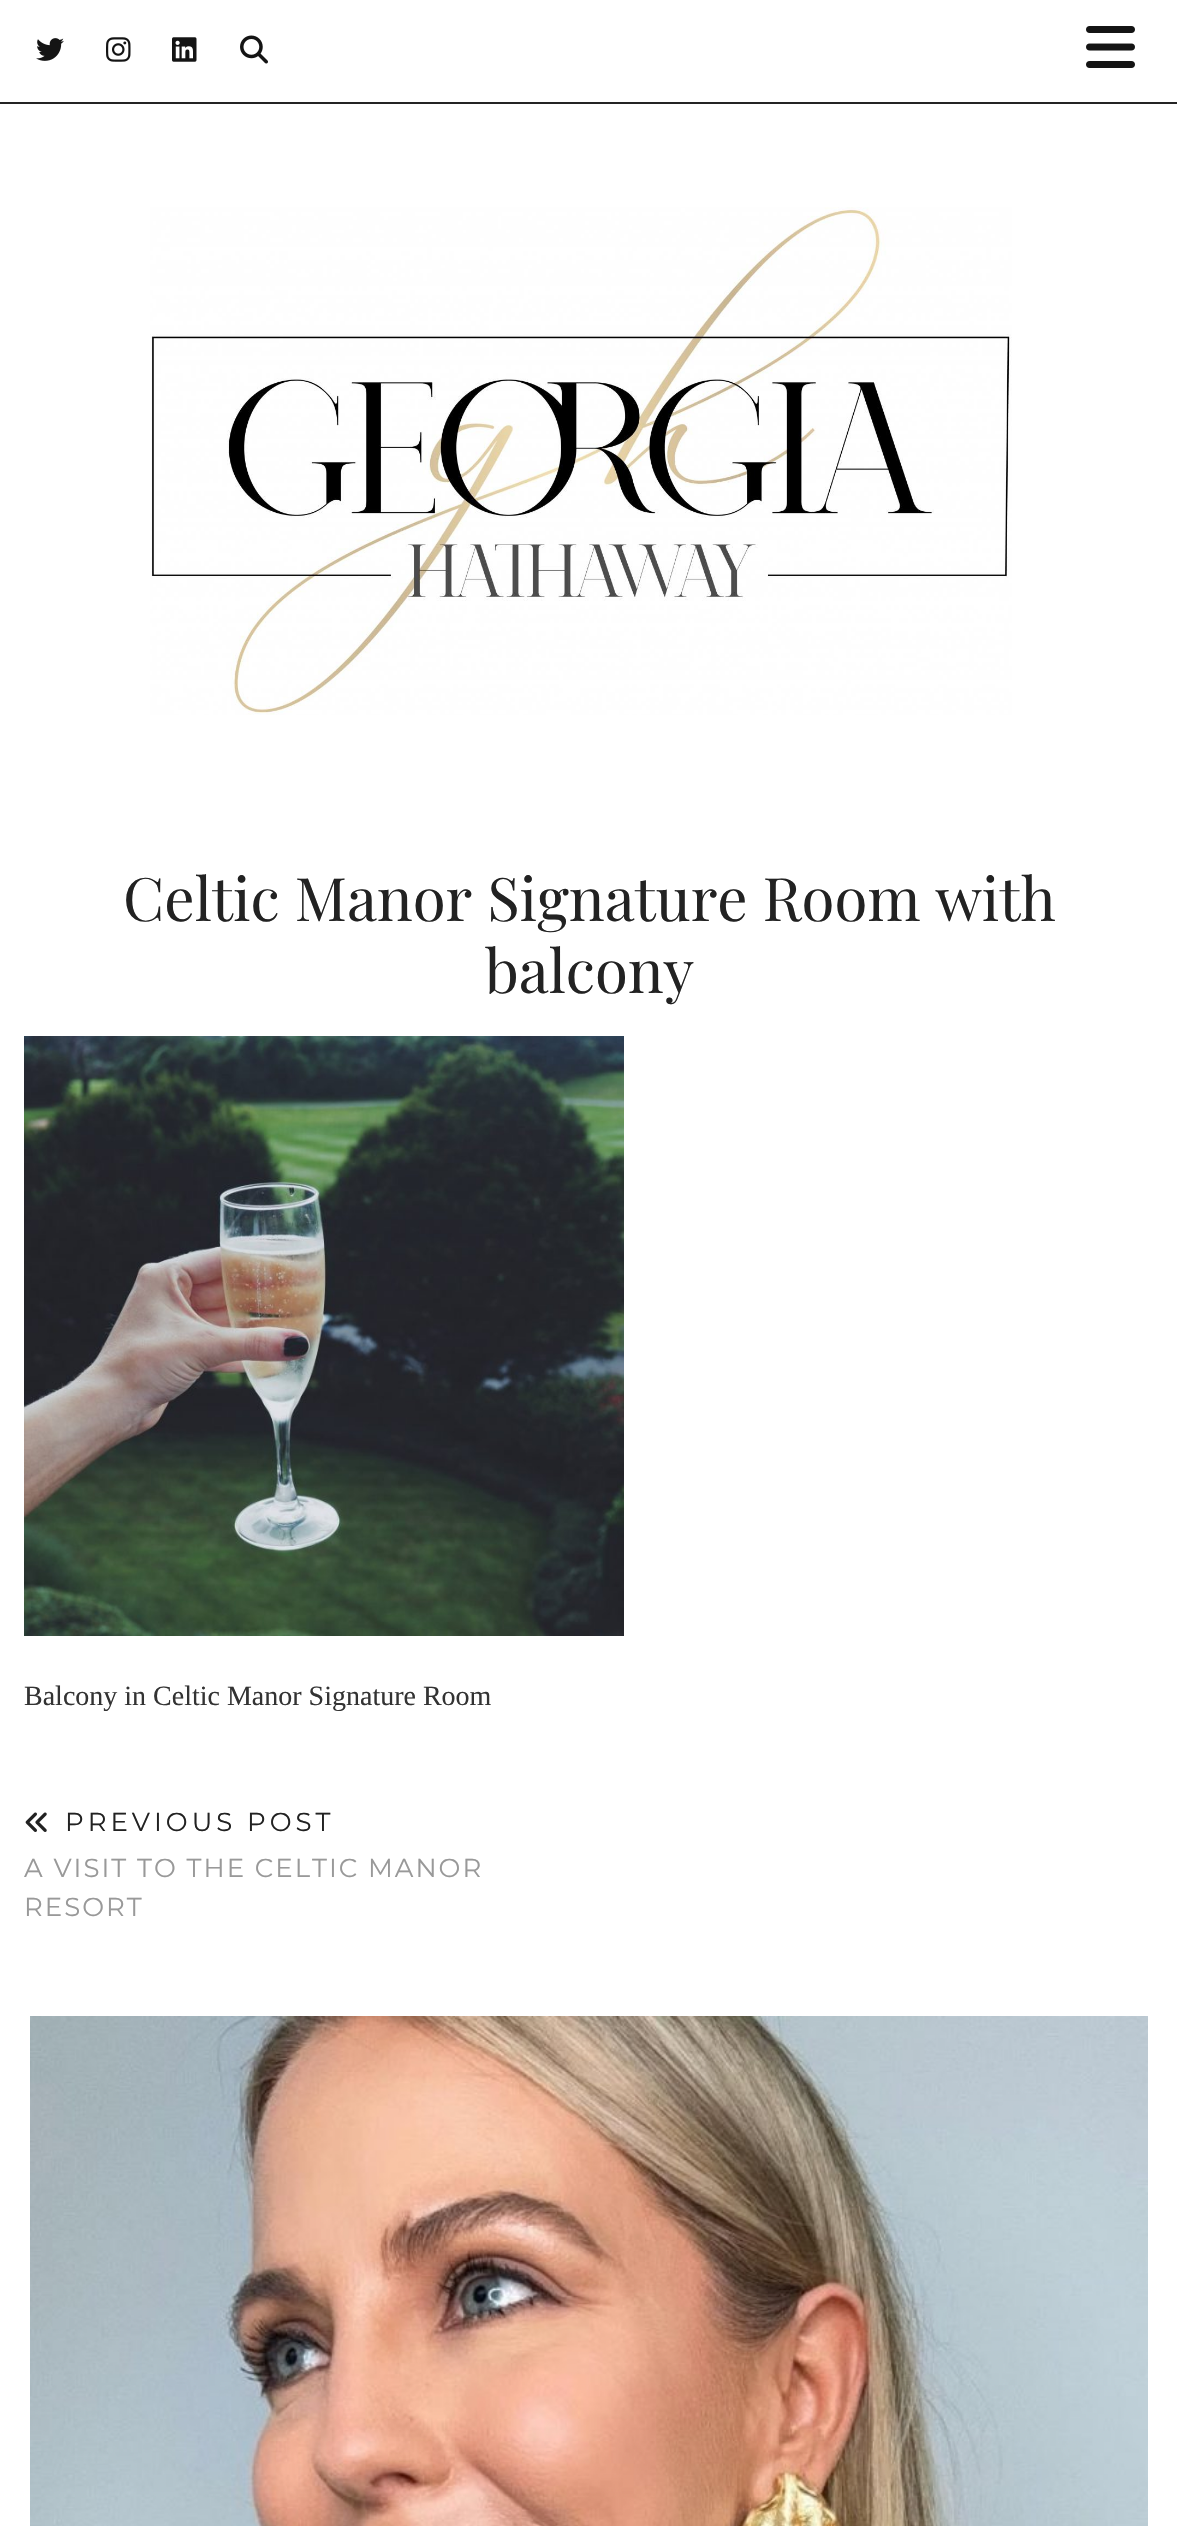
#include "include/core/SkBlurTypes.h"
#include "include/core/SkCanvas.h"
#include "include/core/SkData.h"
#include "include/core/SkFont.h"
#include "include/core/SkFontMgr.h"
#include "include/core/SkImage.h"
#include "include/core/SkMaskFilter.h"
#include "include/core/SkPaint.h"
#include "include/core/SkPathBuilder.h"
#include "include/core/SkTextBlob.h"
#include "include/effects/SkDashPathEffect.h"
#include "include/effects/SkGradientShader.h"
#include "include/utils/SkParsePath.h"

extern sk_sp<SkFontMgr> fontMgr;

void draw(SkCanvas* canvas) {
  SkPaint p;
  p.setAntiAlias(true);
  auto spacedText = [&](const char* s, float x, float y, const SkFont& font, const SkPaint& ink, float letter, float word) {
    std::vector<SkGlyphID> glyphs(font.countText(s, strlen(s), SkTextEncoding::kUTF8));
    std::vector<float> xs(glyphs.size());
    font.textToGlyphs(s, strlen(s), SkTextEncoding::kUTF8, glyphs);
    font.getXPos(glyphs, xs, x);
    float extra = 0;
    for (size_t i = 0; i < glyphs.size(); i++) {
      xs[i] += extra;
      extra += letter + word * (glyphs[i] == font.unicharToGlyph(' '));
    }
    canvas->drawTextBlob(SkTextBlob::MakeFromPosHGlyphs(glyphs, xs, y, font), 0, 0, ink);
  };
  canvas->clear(SK_ColorWHITE);
  p.setColor(SkColorSetRGB(36, 36, 36));
  canvas->drawRect(SkRect::MakeLTRB(0, 102, 1177, 104), p);
  canvas->drawImageRect(SkImages::DeferredFromEncodedData(SkData::MakeFromFileName("images/1.png")), SkRect::MakeLTRB(36, 38, 64, 61), SkSamplingOptions());
  canvas->drawImageRect(SkImages::DeferredFromEncodedData(SkData::MakeFromFileName("images/2.png")), SkRect::MakeLTRB(106, 37, 131, 62), SkSamplingOptions());
  canvas->drawImageRect(SkImages::DeferredFromEncodedData(SkData::MakeFromFileName("images/3.png")), SkRect::MakeLTRB(172, 37, 197, 62), SkSamplingOptions());
  canvas->drawImageRect(SkImages::DeferredFromEncodedData(SkData::MakeFromFileName("images/4.png")), SkRect::MakeLTRB(240, 35, 268, 64), SkSamplingOptions());
  canvas->drawImageRect(SkImages::DeferredFromEncodedData(SkData::MakeFromFileName("images/5.png")), SkRect::MakeLTRB(1086, 26, 1135, 68), SkSamplingOptions());
  canvas->drawImageRect(SkImages::DeferredFromEncodedData(SkData::MakeFromFileName("images/6.png")), SkRect::MakeLTRB(150, 207, 1012, 715), SkSamplingOptions());
  canvas->drawImageRect(SkImages::DeferredFromEncodedData(SkData::MakeFromFileName("images/7.png")), SkRect::MakeLTRB(24, 1036, 624, 1636), SkSamplingOptions());
  canvas->drawImageRect(SkImages::DeferredFromEncodedData(SkData::MakeFromFileName("images/8.png")), SkRect::MakeLTRB(25, 1812, 47, 1832), SkSamplingOptions());
  canvas->drawImageRect(SkImages::DeferredFromEncodedData(SkData::MakeFromFileName("images/9.png")), SkRect::MakeLTRB(30, 2016, 1148, 2526), SkSamplingOptions());
  SkFont font1(fontMgr->matchFamilyStyle("Playfair Display", SkFontStyle::Normal()), 60);
  font1.setSubpixel(true);
  p.setColor(SkColorSetRGB(34, 34, 34));
  canvas->drawString("Celtic Manor Signature Room with", 123, 921, font1, p);
  canvas->drawString("balcony", 485, 993, font1, p);
  SkFont font2(fontMgr->matchFamilyStyle("Liberation Serif", SkFontStyle::Normal()), 28);
  font2.setSubpixel(true);
  p.setColor(SkColorSetRGB(51, 51, 51));
  canvas->drawString("Balcony in Celtic Manor Signature Room", 24, 1705, font2, p);
  SkFont font3(fontMgr->matchFamilyStyle("Montserrat", SkFontStyle(100, SkFontStyle::kNormal_Width, SkFontStyle::kUpright_Slant)), 26);
  font3.setSubpixel(true);
  p.setColor(SkColorSetRGB(34, 34, 34));
  spacedText("PREVIOUS POST", 65, 1831, font3, p, 4, 0);
  p.setColor(SkColorSetRGB(153, 153, 153));
  spacedText("A VISIT TO THE CELTIC MANOR", 24, 1877, font3, p, 2, 0);
  spacedText("RESORT", 24, 1916, font3, p, 2, 0);
}
